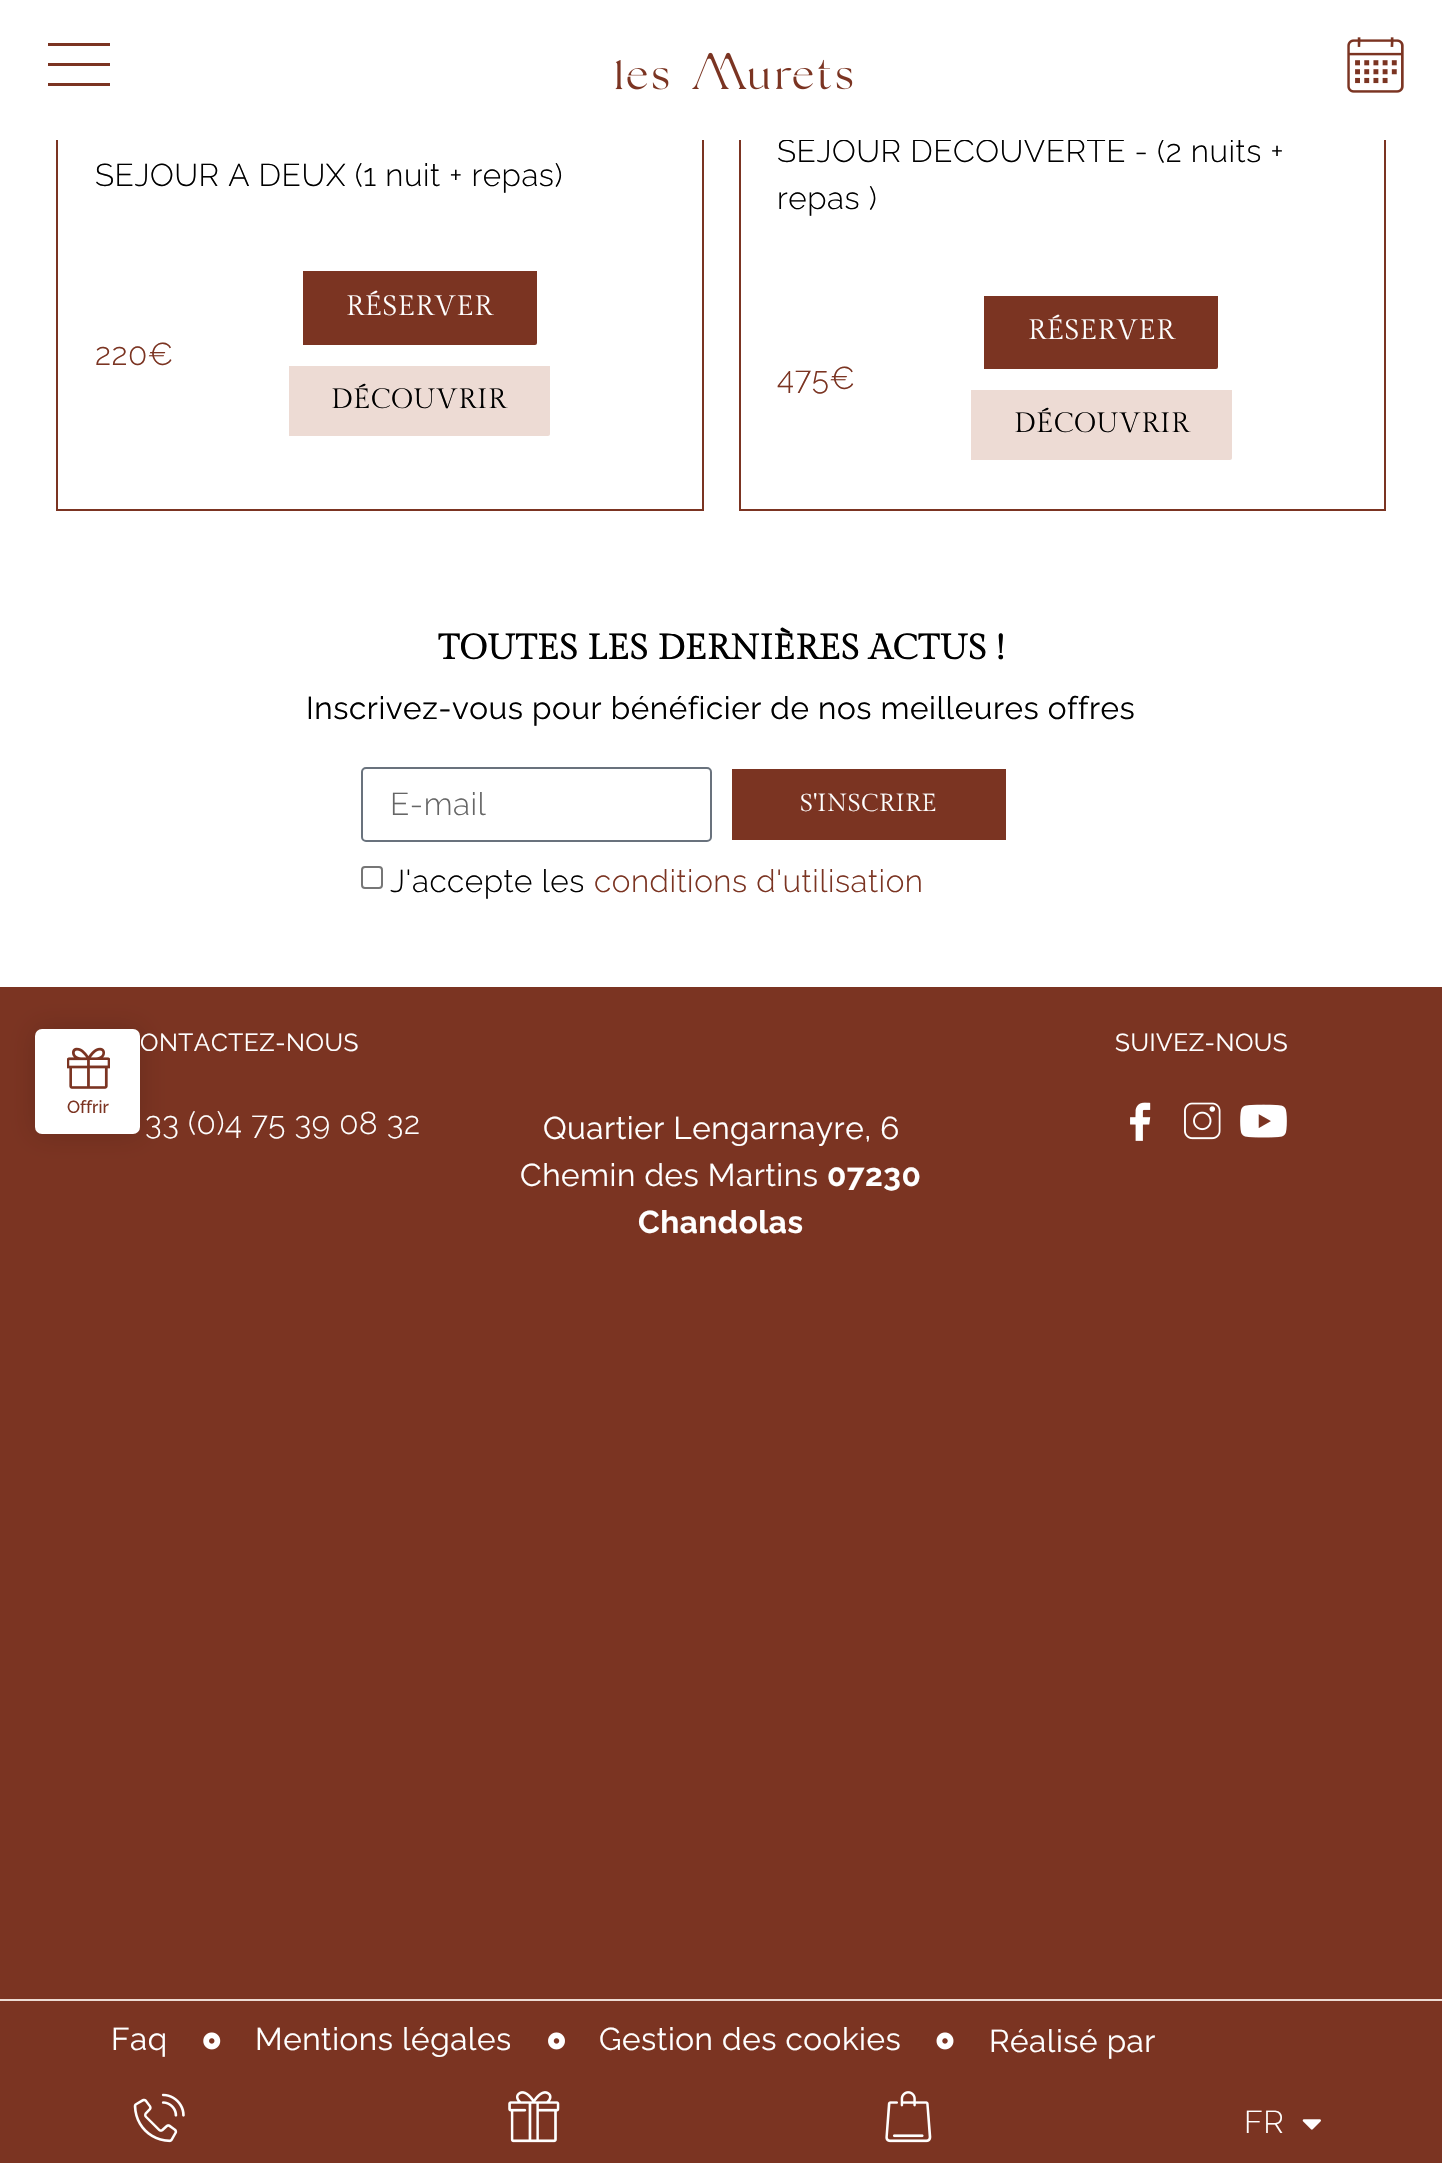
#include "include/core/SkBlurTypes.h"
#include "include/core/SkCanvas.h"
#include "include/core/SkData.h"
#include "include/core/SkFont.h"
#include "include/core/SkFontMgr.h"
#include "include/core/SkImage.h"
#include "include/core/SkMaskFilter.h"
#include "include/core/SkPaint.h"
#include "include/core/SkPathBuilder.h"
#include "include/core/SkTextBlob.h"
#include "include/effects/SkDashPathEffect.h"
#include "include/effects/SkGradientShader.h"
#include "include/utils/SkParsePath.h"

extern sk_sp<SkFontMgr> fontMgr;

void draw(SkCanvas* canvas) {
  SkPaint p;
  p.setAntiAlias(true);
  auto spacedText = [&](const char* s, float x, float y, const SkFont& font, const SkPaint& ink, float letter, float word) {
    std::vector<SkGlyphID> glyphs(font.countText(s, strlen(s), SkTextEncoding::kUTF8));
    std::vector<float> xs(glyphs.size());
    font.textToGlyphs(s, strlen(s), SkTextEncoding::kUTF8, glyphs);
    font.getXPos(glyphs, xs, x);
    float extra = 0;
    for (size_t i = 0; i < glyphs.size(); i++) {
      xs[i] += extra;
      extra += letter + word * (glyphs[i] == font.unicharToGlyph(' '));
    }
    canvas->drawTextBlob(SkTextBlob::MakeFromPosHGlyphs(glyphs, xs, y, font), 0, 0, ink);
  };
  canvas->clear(SK_ColorWHITE);
  p.setStyle(SkPaint::kStroke_Style);
  p.setStrokeWidth(2);
  p.setColor(SkColorSetRGB(123, 52, 34));
  canvas->drawRect(SkRect::MakeLTRB(57, -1, 703, 510), p);
  p.setStyle(SkPaint::kFill_Style);
  canvas->drawPath(SkPathBuilder().moveTo(304, 272).lineTo(536, 272).lineTo(536, 343).cubicTo(536, 343.5f, 535.5f, 344, 535, 344).lineTo(304, 344).close().detach(), p);
  p.setStyle(SkPaint::kStroke_Style);
  canvas->drawPath(SkPathBuilder().moveTo(304, 272).lineTo(536, 272).lineTo(536, 343).cubicTo(536, 343.5f, 535.5f, 344, 535, 344).lineTo(304, 344).close().detach(), p);
  p.setStyle(SkPaint::kFill_Style);
  p.setColor(SkColorSetRGB(237, 219, 212));
  canvas->drawPath(SkPathBuilder().moveTo(289, 366).lineTo(550, 366).lineTo(550, 434).cubicTo(550, 435, 549, 436, 548, 436).lineTo(289, 436).close().detach(), p);
  p.setStyle(SkPaint::kStroke_Style);
  p.setColor(SkColorSetRGB(123, 52, 34));
  canvas->drawRect(SkRect::MakeLTRB(740, -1, 1385, 510), p);
  p.setStyle(SkPaint::kFill_Style);
  canvas->drawPath(SkPathBuilder().moveTo(985, 297).lineTo(1217, 297).lineTo(1217, 367).cubicTo(1217, 367.5f, 1216.5f, 368, 1216, 368).lineTo(985, 368).close().detach(), p);
  p.setStyle(SkPaint::kStroke_Style);
  canvas->drawPath(SkPathBuilder().moveTo(985, 297).lineTo(1217, 297).lineTo(1217, 367).cubicTo(1217, 367.5f, 1216.5f, 368, 1216, 368).lineTo(985, 368).close().detach(), p);
  p.setStyle(SkPaint::kFill_Style);
  p.setColor(SkColorSetRGB(237, 219, 212));
  canvas->drawPath(SkPathBuilder().moveTo(971, 390).lineTo(1232, 390).lineTo(1232, 458).cubicTo(1232, 459, 1231, 460, 1230, 460).lineTo(971, 460).close().detach(), p);
  p.setColor(SkColorSetRGB(123, 52, 34));
  canvas->drawRect(SkRect::MakeLTRB(0, 987, 1442, 1999), p);
  p.setColor(SkColorSetARGB(38, 0, 0, 0));
  p.setMaskFilter(SkMaskFilter::MakeBlur(kNormal_SkBlurStyle, 13));
  canvas->drawRect(SkRect::MakeLTRB(35, 1029, 140, 1134), p);
  p.setMaskFilter(nullptr);
  p.setColor(SK_ColorWHITE);
  canvas->drawRoundRect(SkRect::MakeLTRB(35, 1029, 140, 1134), 7, 7, p);
  canvas->drawImageRect(SkImages::DeferredFromEncodedData(SkData::MakeFromFileName("images/3.png")), SkRect::MakeLTRB(67, 1047, 110, 1089), SkSamplingOptions());
  p.setStyle(SkPaint::kStroke_Style);
  p.setColor(SkColorSetRGB(105, 114, 125));
  canvas->drawRoundRect(SkRect::MakeLTRB(362, 768, 711, 841), 4, 4, p);
  p.setStyle(SkPaint::kFill_Style);
  p.setColor(SkColorSetRGB(123, 52, 34));
  canvas->drawPath(SkPathBuilder().moveTo(731, 768).lineTo(1007, 768).lineTo(1007, 840).cubicTo(1007, 840.5f, 1006.5f, 841, 1006, 841).lineTo(731, 841).close().detach(), p);
  p.setStyle(SkPaint::kStroke_Style);
  p.setColor(SK_ColorWHITE);
  canvas->drawPath(SkPathBuilder().moveTo(731, 768).lineTo(1007, 768).lineTo(1007, 840).cubicTo(1007, 840.5f, 1006.5f, 841, 1006, 841).lineTo(731, 841).close().detach(), p);
  p.setColor(SkColorSetRGB(118, 118, 118));
  canvas->drawRoundRect(SkRect::MakeLTRB(362, 867, 382, 888), 3, 3, p);
  canvas->drawImageRect(SkImages::DeferredFromEncodedData(SkData::MakeFromFileName("images/4.png")), SkRect::MakeLTRB(1130, 1102, 1151, 1141), SkSamplingOptions());
  canvas->drawImageRect(SkImages::DeferredFromEncodedData(SkData::MakeFromFileName("images/5.png")), SkRect::MakeLTRB(1184, 1102, 1221, 1140), SkSamplingOptions());
  canvas->drawImageRect(SkImages::DeferredFromEncodedData(SkData::MakeFromFileName("images/6.png")), SkRect::MakeLTRB(1240, 1104, 1287, 1138), SkSamplingOptions());
  p.setStyle(SkPaint::kFill_Style);
  p.setColor(SkColorSetRGB(123, 52, 34));
  canvas->drawPath(SkPathBuilder().moveTo(1362, 1943).cubicTo(1359, 1943, 1351, 1953, 1348, 1955).lineTo(1345, 1958).cubicTo(1344, 1959, 1340, 1962, 1342, 1964).cubicTo(1344, 1966, 1346, 1962, 1347, 1961).lineTo(1360, 1949).lineTo(1360, 2021).lineTo(1361, 2022).cubicTo(1362, 2023, 1363, 2023, 1364, 2021).lineTo(1364, 1949).lineTo(1379, 1964).cubicTo(1380, 1965, 1382, 1964, 1382, 1963).cubicTo(1382, 1961, 1363, 1943, 1362, 1943).close().detach(), p);
  canvas->drawRect(SkRect::MakeLTRB(0, 2001, 1442, 2163), p);
  p.setColor(SkColorSetRGB(237, 219, 212));
  canvas->drawRect(SkRect::MakeLTRB(0, 1999, 1442, 2001), p);
  canvas->drawImageRect(SkImages::DeferredFromEncodedData(SkData::MakeFromFileName("images/7.png")), SkRect::MakeLTRB(203, 2032, 221, 2050), SkSamplingOptions());
  canvas->drawImageRect(SkImages::DeferredFromEncodedData(SkData::MakeFromFileName("images/8.png")), SkRect::MakeLTRB(548, 2032, 565, 2050), SkSamplingOptions());
  canvas->drawImageRect(SkImages::DeferredFromEncodedData(SkData::MakeFromFileName("images/9.png")), SkRect::MakeLTRB(936, 2032, 954, 2050), SkSamplingOptions());
  canvas->drawImageRect(SkImages::DeferredFromEncodedData(SkData::MakeFromFileName("images/10.png")), SkRect::MakeLTRB(133, 2093, 185, 2143), SkSamplingOptions());
  canvas->drawImageRect(SkImages::DeferredFromEncodedData(SkData::MakeFromFileName("images/11.png")), SkRect::MakeLTRB(508, 2091, 560, 2143), SkSamplingOptions());
  canvas->drawImageRect(SkImages::DeferredFromEncodedData(SkData::MakeFromFileName("images/12.png")), SkRect::MakeLTRB(885, 2091, 932, 2143), SkSamplingOptions());
  canvas->drawImageRect(SkImages::DeferredFromEncodedData(SkData::MakeFromFileName("images/13.png")), SkRect::MakeLTRB(1302, 2119, 1321, 2130), SkSamplingOptions());
  SkFont font1(fontMgr->matchFamilyStyle("Raleway", SkFontStyle(300, SkFontStyle::kNormal_Width, SkFontStyle::kUpright_Slant)), 31.5f);
  font1.setSubpixel(true);
  p.setColor(SK_ColorBLACK);
  spacedText("SEJOUR A DEUX (1 nuit + repas)", 95, 186, font1, p, 0.53f, 0);
  p.setColor(SkColorSetRGB(123, 52, 34));
  spacedText("220€", 95, 365, font1, p, 0.53f, 0);
  SkFont font2(fontMgr->matchFamilyStyle("Gilda Display", SkFontStyle::Normal()), 28);
  font2.setSubpixel(true);
  p.setColor(SK_ColorWHITE);
  spacedText("RÉSERVER", 346, 315, font2, p, 0.53f, 0);
  p.setColor(SK_ColorBLACK);
  spacedText("DÉCOUVRIR", 331, 408, font2, p, 0.53f, 0);
  spacedText("SEJOUR DECOUVERTE - (2 nuits +", 777, 162, font1, p, 0.53f, 0);
  p.setColor(SK_ColorWHITE);
  canvas->drawRect(SkRect::MakeLTRB(56, 0, 1386, 140), p);
  canvas->drawImageRect(SkImages::DeferredFromEncodedData(SkData::MakeFromFileName("images/1.png")), SkRect::MakeLTRB(615, 52, 853, 90), SkSamplingOptions());
  canvas->drawImageRect(SkImages::DeferredFromEncodedData(SkData::MakeFromFileName("images/2.png")), SkRect::MakeLTRB(1347, 37, 1404, 93), SkSamplingOptions());
  p.setColor(SkColorSetRGB(123, 52, 34));
  canvas->drawPath(SkPathBuilder().moveTo(48, 43).lineTo(48, 46).lineTo(110, 46).lineTo(110, 43).close().moveTo(48, 63).lineTo(48, 66).lineTo(110, 66).lineTo(110, 63).close().moveTo(48, 83).lineTo(48, 86).lineTo(110, 86).lineTo(110, 83).close().detach(), p);
  p.setColor(SK_ColorBLACK);
  spacedText("repas )", 777, 209, font1, p, 0.53f, 0);
  p.setColor(SkColorSetRGB(123, 52, 34));
  spacedText("475€", 777, 389, font1, p, 0.53f, 0);
  p.setColor(SK_ColorWHITE);
  spacedText("RÉSERVER", 1028, 339, font2, p, 0.53f, 0);
  p.setColor(SK_ColorBLACK);
  spacedText("DÉCOUVRIR", 1014, 432, font2, p, 0.53f, 0);
  SkFont font3(fontMgr->matchFamilyStyle("Raleway", SkFontStyle(500, SkFontStyle::kNormal_Width, SkFontStyle::kUpright_Slant)), 17.5f);
  font3.setSubpixel(true);
  p.setColor(SkColorSetRGB(123, 52, 34));
  canvas->drawString("Offrir", 67, 1113, font3, p);
  SkFont font4(fontMgr->matchFamilyStyle("Gilda Display", SkFontStyle::Bold()), 35);
  font4.setSubpixel(true);
  p.setColor(SK_ColorBLACK);
  spacedText("TOUTES LES DERNIÈRES ACTUS !", 438, 659, font4, p, 0.53f, 0);
  SkFont font5(fontMgr->matchFamilyStyle("Raleway", SkFontStyle(100, SkFontStyle::kNormal_Width, SkFontStyle::kUpright_Slant)), 31.5f);
  font5.setSubpixel(true);
  spacedText("Inscrivez-vous pour bénéficier de nos meilleures offres", 306, 719, font5, p, 0.53f, 0);
  p.setColor(SkColorSetRGB(102, 102, 102));
  spacedText("E-mail", 390, 815, font1, p, 0.53f, 0);
  SkFont font6(fontMgr->matchFamilyStyle("Gilda Display", SkFontStyle::Normal()), 24.5f);
  font6.setSubpixel(true);
  p.setColor(SK_ColorWHITE);
  spacedText("S'INSCRIRE", 800, 811, font6, p, 0.53f, 0);
  p.setColor(SK_ColorBLACK);
  spacedText("J'accepte les", 390, 892, font1, p, 0.53f, 0);
  p.setColor(SkColorSetRGB(123, 52, 34));
  spacedText("conditions d'utilisation", 594, 892, font1, p, 0.53f, 0);
  SkFont font7(fontMgr->matchFamilyStyle("Raleway", SkFontStyle(100, SkFontStyle::kNormal_Width, SkFontStyle::kUpright_Slant)), 24.5f);
  font7.setSubpixel(true);
  p.setColor(SK_ColorWHITE);
  spacedText("ONTACTEZ-NOUS", 140, 1051, font7, p, 0.53f, 0);
  spacedText("33 (0)4 75 39 08 32", 145, 1134, font1, p, 0.53f, 0);
  spacedText("SUIVEZ-NOUS", 1115, 1051, font7, p, 0.53f, 0);
  spacedText("Quartier Lengarnayre, 6", 543, 1139, font5, p, 0.53f, 0);
  spacedText("Chemin des Martins", 520, 1186, font5, p, 0.53f, 0);
  SkFont font8(fontMgr->matchFamilyStyle("Raleway", SkFontStyle::Bold()), 31.5f);
  font8.setSubpixel(true);
  spacedText("07230", 827, 1186, font8, p, 0.53f, 0);
  spacedText("Chandolas", 638, 1233, font8, p, 0.53f, 0);
  spacedText("Faq", 111, 2050, font5, p, 0.53f, 0);
  spacedText("Mentions légales", 255, 2050, font5, p, 0.53f, 0);
  spacedText("Gestion des cookies", 599, 2050, font5, p, 0.53f, 0);
  spacedText("Réalisé par", 989, 2052, font5, p, 0.53f, 0);
  spacedText("FR", 1244, 2133, font1, p, 0.53f, 0);
}
